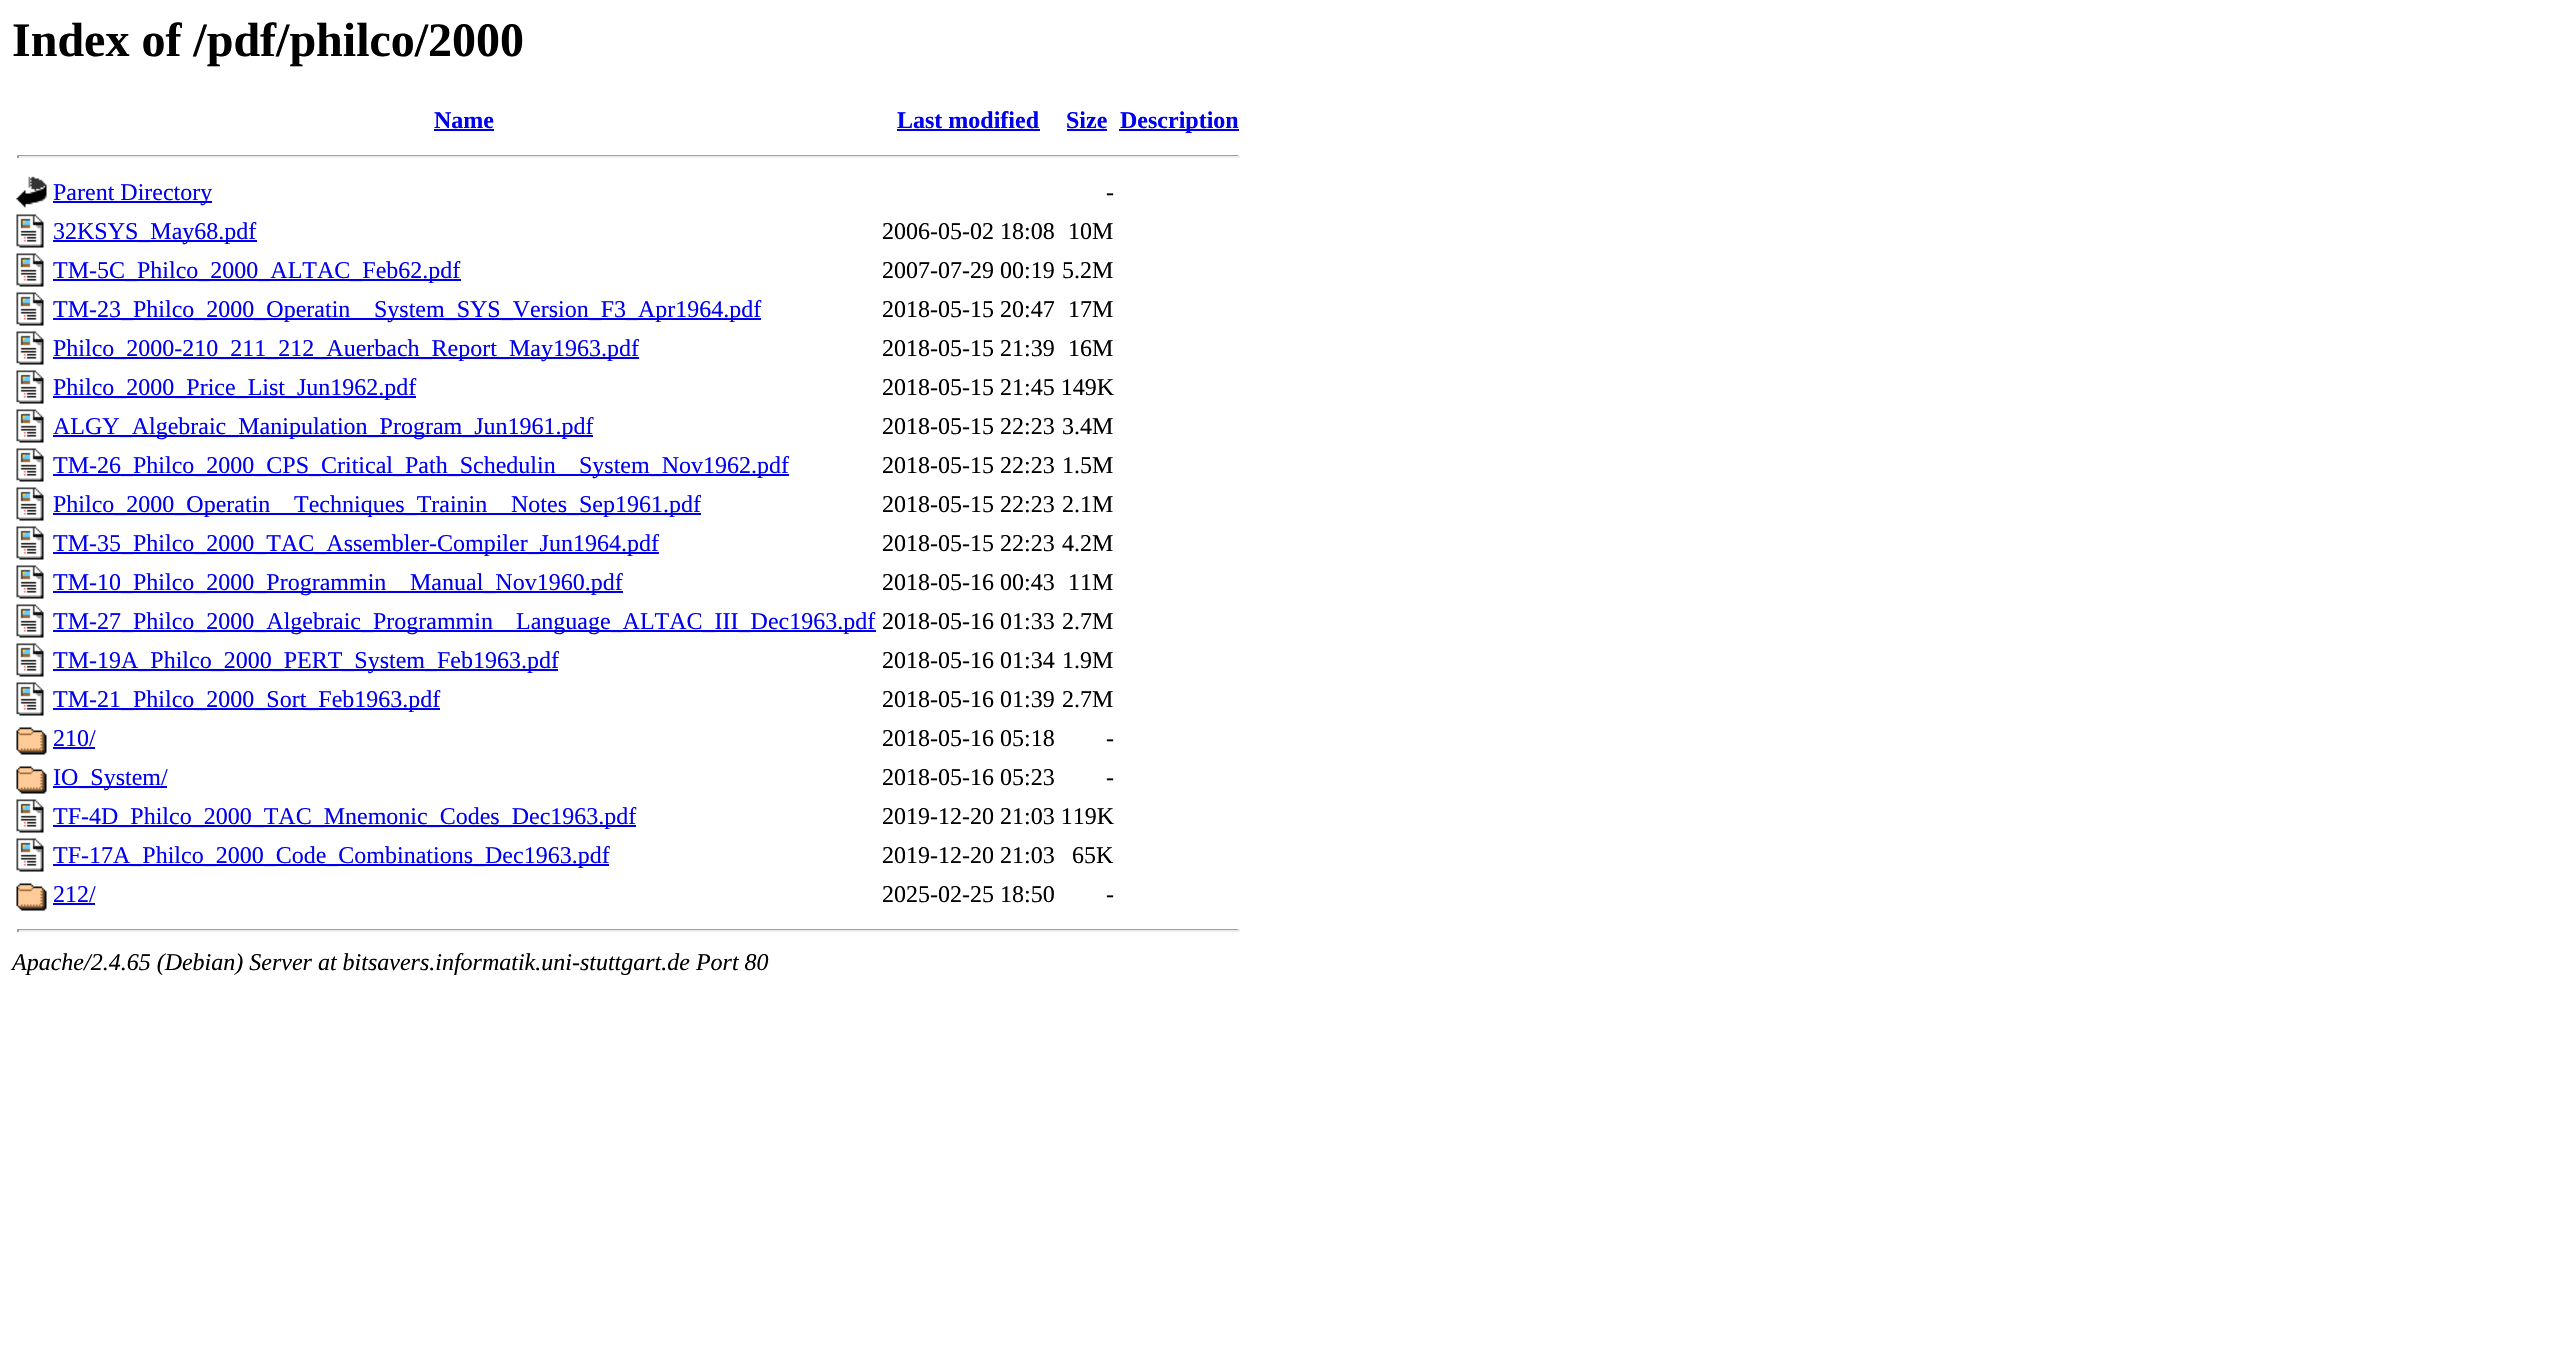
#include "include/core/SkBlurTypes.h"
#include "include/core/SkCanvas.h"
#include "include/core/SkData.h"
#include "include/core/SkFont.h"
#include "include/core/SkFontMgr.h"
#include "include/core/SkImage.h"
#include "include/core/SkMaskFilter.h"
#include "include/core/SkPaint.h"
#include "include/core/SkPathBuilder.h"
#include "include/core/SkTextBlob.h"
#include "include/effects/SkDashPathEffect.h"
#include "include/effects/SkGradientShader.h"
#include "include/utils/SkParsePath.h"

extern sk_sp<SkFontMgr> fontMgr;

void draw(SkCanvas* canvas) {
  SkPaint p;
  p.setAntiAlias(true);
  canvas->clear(SK_ColorWHITE);
  p.setColor(SkColorSetRGB(0, 0, 238));
  canvas->drawRect(SkRect::MakeLTRB(434, 129, 494, 131), p);
  canvas->drawRect(SkRect::MakeLTRB(897, 129, 1040, 131), p);
  canvas->drawRect(SkRect::MakeLTRB(1067, 129, 1107, 131), p);
  canvas->drawRect(SkRect::MakeLTRB(1119, 129, 1239, 131), p);
  p.setColor(SkColorSetRGB(159, 159, 159));
  canvas->drawRect(SkRect::MakeLTRB(17, 155, 1239, 156), p);
  p.setColor(SkColorSetRGB(238, 238, 238));
  canvas->drawRect(SkRect::MakeLTRB(1238, 155, 1240, 158), p);
  canvas->drawRect(SkRect::MakeLTRB(17, 156, 1239, 158), p);
  p.setColor(SkColorSetRGB(159, 159, 159));
  canvas->drawRect(SkRect::MakeLTRB(17, 155, 19, 158), p);
  canvas->drawImageRect(SkImages::DeferredFromEncodedData(SkData::MakeFromFileName("images/1.png")), SkRect::MakeLTRB(16, 176, 47, 208), SkSamplingOptions());
  p.setColor(SkColorSetRGB(0, 0, 238));
  canvas->drawRect(SkRect::MakeLTRB(53, 201, 212, 203), p);
  canvas->drawImageRect(SkImages::DeferredFromEncodedData(SkData::MakeFromFileName("images/2.png")), SkRect::MakeLTRB(16, 214, 44, 248), SkSamplingOptions());
  canvas->drawRect(SkRect::MakeLTRB(53, 240, 257, 242), p);
  canvas->drawImageRect(SkImages::DeferredFromEncodedData(SkData::MakeFromFileName("images/2.png")), SkRect::MakeLTRB(16, 253, 44, 287), SkSamplingOptions());
  canvas->drawRect(SkRect::MakeLTRB(53, 279, 461, 281), p);
  canvas->drawImageRect(SkImages::DeferredFromEncodedData(SkData::MakeFromFileName("images/2.png")), SkRect::MakeLTRB(16, 292, 44, 326), SkSamplingOptions());
  canvas->drawRect(SkRect::MakeLTRB(53, 318, 761, 320), p);
  canvas->drawImageRect(SkImages::DeferredFromEncodedData(SkData::MakeFromFileName("images/2.png")), SkRect::MakeLTRB(16, 331, 44, 365), SkSamplingOptions());
  canvas->drawRect(SkRect::MakeLTRB(53, 357, 639, 359), p);
  canvas->drawImageRect(SkImages::DeferredFromEncodedData(SkData::MakeFromFileName("images/2.png")), SkRect::MakeLTRB(16, 370, 44, 404), SkSamplingOptions());
  canvas->drawRect(SkRect::MakeLTRB(53, 396, 416, 398), p);
  canvas->drawImageRect(SkImages::DeferredFromEncodedData(SkData::MakeFromFileName("images/2.png")), SkRect::MakeLTRB(16, 409, 44, 443), SkSamplingOptions());
  canvas->drawRect(SkRect::MakeLTRB(53, 435, 593, 437), p);
  canvas->drawImageRect(SkImages::DeferredFromEncodedData(SkData::MakeFromFileName("images/2.png")), SkRect::MakeLTRB(16, 448, 44, 482), SkSamplingOptions());
  canvas->drawRect(SkRect::MakeLTRB(53, 474, 789, 476), p);
  canvas->drawImageRect(SkImages::DeferredFromEncodedData(SkData::MakeFromFileName("images/2.png")), SkRect::MakeLTRB(16, 487, 44, 521), SkSamplingOptions());
  canvas->drawRect(SkRect::MakeLTRB(53, 513, 701, 515), p);
  canvas->drawImageRect(SkImages::DeferredFromEncodedData(SkData::MakeFromFileName("images/2.png")), SkRect::MakeLTRB(16, 526, 44, 560), SkSamplingOptions());
  canvas->drawRect(SkRect::MakeLTRB(53, 552, 659, 554), p);
  canvas->drawImageRect(SkImages::DeferredFromEncodedData(SkData::MakeFromFileName("images/2.png")), SkRect::MakeLTRB(16, 565, 44, 599), SkSamplingOptions());
  canvas->drawRect(SkRect::MakeLTRB(53, 591, 623, 593), p);
  canvas->drawImageRect(SkImages::DeferredFromEncodedData(SkData::MakeFromFileName("images/2.png")), SkRect::MakeLTRB(16, 604, 44, 638), SkSamplingOptions());
  canvas->drawRect(SkRect::MakeLTRB(53, 630, 876, 632), p);
  canvas->drawImageRect(SkImages::DeferredFromEncodedData(SkData::MakeFromFileName("images/2.png")), SkRect::MakeLTRB(16, 643, 44, 677), SkSamplingOptions());
  canvas->drawRect(SkRect::MakeLTRB(53, 669, 558, 671), p);
  canvas->drawImageRect(SkImages::DeferredFromEncodedData(SkData::MakeFromFileName("images/2.png")), SkRect::MakeLTRB(16, 682, 44, 716), SkSamplingOptions());
  canvas->drawRect(SkRect::MakeLTRB(53, 708, 440, 710), p);
  canvas->drawImageRect(SkImages::DeferredFromEncodedData(SkData::MakeFromFileName("images/3.png")), SkRect::MakeLTRB(16, 727, 47, 755), SkSamplingOptions());
  canvas->drawRect(SkRect::MakeLTRB(53, 747, 95, 749), p);
  canvas->drawImageRect(SkImages::DeferredFromEncodedData(SkData::MakeFromFileName("images/3.png")), SkRect::MakeLTRB(16, 766, 47, 794), SkSamplingOptions());
  canvas->drawRect(SkRect::MakeLTRB(53, 786, 167, 788), p);
  canvas->drawImageRect(SkImages::DeferredFromEncodedData(SkData::MakeFromFileName("images/2.png")), SkRect::MakeLTRB(16, 799, 44, 833), SkSamplingOptions());
  canvas->drawRect(SkRect::MakeLTRB(53, 825, 636, 827), p);
  canvas->drawImageRect(SkImages::DeferredFromEncodedData(SkData::MakeFromFileName("images/2.png")), SkRect::MakeLTRB(16, 838, 44, 872), SkSamplingOptions());
  canvas->drawRect(SkRect::MakeLTRB(53, 864, 609, 866), p);
  canvas->drawImageRect(SkImages::DeferredFromEncodedData(SkData::MakeFromFileName("images/3.png")), SkRect::MakeLTRB(16, 883, 47, 911), SkSamplingOptions());
  canvas->drawRect(SkRect::MakeLTRB(53, 903, 95, 905), p);
  p.setColor(SkColorSetRGB(159, 159, 159));
  canvas->drawRect(SkRect::MakeLTRB(17, 929, 1239, 930), p);
  p.setColor(SkColorSetRGB(238, 238, 238));
  canvas->drawRect(SkRect::MakeLTRB(1238, 929, 1240, 932), p);
  canvas->drawRect(SkRect::MakeLTRB(17, 930, 1239, 932), p);
  p.setColor(SkColorSetRGB(159, 159, 159));
  canvas->drawRect(SkRect::MakeLTRB(17, 929, 19, 932), p);
  SkFont font1(fontMgr->matchFamilyStyle("Liberation Serif", SkFontStyle::Bold()), 48);
  font1.setSubpixel(true);
  p.setColor(SK_ColorBLACK);
  canvas->drawString("Index of /pdf/philco/2000", 12, 56, font1, p);
  SkFont font2(fontMgr->matchFamilyStyle("Liberation Serif", SkFontStyle::Bold()), 24);
  font2.setSubpixel(true);
  p.setColor(SkColorSetRGB(0, 0, 238));
  canvas->drawString("Name", 434, 128, font2, p);
  canvas->drawString("Last modified", 897, 128, font2, p);
  canvas->drawString("Size", 1066, 128, font2, p);
  canvas->drawString("Description", 1120, 128, font2, p);
  SkFont font3(fontMgr->matchFamilyStyle("Liberation Serif", SkFontStyle::Normal()), 24);
  font3.setSubpixel(true);
  canvas->drawString("Parent Directory", 53, 200, font3, p);
  p.setColor(SK_ColorBLACK);
  canvas->drawString("-", 1106, 200, font3, p);
  p.setColor(SkColorSetRGB(0, 0, 238));
  canvas->drawString("32KSYS_May68.pdf", 53, 239, font3, p);
  p.setColor(SK_ColorBLACK);
  canvas->drawString("2006-05-02 18:08", 882, 239, font3, p);
  canvas->drawString("10M", 1068, 239, font3, p);
  p.setColor(SkColorSetRGB(0, 0, 238));
  canvas->drawString("TM-5C_Philco_2000_ALTAC_Feb62.pdf", 53, 278, font3, p);
  p.setColor(SK_ColorBLACK);
  canvas->drawString("2007-07-29 00:19", 882, 278, font3, p);
  canvas->drawString("5.2M", 1062, 278, font3, p);
  p.setColor(SkColorSetRGB(0, 0, 238));
  canvas->drawString("TM-23_Philco_2000_Operatin", 53, 317, font3, p);
  canvas->drawString("System_SYS_Version_F3_Apr1964.pdf", 374, 317, font3, p);
  p.setColor(SK_ColorBLACK);
  canvas->drawString("2018-05-15 20:47", 882, 317, font3, p);
  canvas->drawString("17M", 1068, 317, font3, p);
  p.setColor(SkColorSetRGB(0, 0, 238));
  canvas->drawString("Philco_2000-210_211_212_Auerbach_Report_May1963.pdf", 53, 356, font3, p);
  p.setColor(SK_ColorBLACK);
  canvas->drawString("2018-05-15 21:39", 882, 356, font3, p);
  canvas->drawString("16M", 1068, 356, font3, p);
  p.setColor(SkColorSetRGB(0, 0, 238));
  canvas->drawString("Philco_2000_Price_List_Jun1962.pdf", 53, 395, font3, p);
  p.setColor(SK_ColorBLACK);
  canvas->drawString("2018-05-15 21:45 149K", 882, 395, font3, p);
  p.setColor(SkColorSetRGB(0, 0, 238));
  canvas->drawString("ALGY_Algebraic_Manipulation_Program_Jun1961.pdf", 53, 434, font3, p);
  p.setColor(SK_ColorBLACK);
  canvas->drawString("2018-05-15 22:23", 882, 434, font3, p);
  canvas->drawString("3.4M", 1062, 434, font3, p);
  p.setColor(SkColorSetRGB(0, 0, 238));
  canvas->drawString("TM-26_Philco_2000_CPS_Critical_Path_Schedulin", 53, 473, font3, p);
  canvas->drawString("System_Nov1962.pdf", 579, 473, font3, p);
  p.setColor(SK_ColorBLACK);
  canvas->drawString("2018-05-15 22:23", 882, 473, font3, p);
  canvas->drawString("1.5M", 1062, 473, font3, p);
  p.setColor(SkColorSetRGB(0, 0, 238));
  canvas->drawString("Philco_2000_Operatin", 53, 512, font3, p);
  canvas->drawString("Techniques_Trainin", 294, 512, font3, p);
  canvas->drawString("Notes_Sep1961.pdf", 511, 512, font3, p);
  p.setColor(SK_ColorBLACK);
  canvas->drawString("2018-05-15 22:23", 882, 512, font3, p);
  canvas->drawString("2.1M", 1062, 512, font3, p);
  p.setColor(SkColorSetRGB(0, 0, 238));
  canvas->drawString("TM-35_Philco_2000_TAC_Assembler-Compiler_Jun1964.pdf", 53, 551, font3, p);
  p.setColor(SK_ColorBLACK);
  canvas->drawString("2018-05-15 22:23", 882, 551, font3, p);
  canvas->drawString("4.2M", 1062, 551, font3, p);
  p.setColor(SkColorSetRGB(0, 0, 238));
  canvas->drawString("TM-10_Philco_2000_Programmin", 53, 590, font3, p);
  canvas->drawString("Manual_Nov1960.pdf", 410, 590, font3, p);
  p.setColor(SK_ColorBLACK);
  canvas->drawString("2018-05-16 00:43", 882, 590, font3, p);
  canvas->drawString("11M", 1068, 590, font3, p);
  p.setColor(SkColorSetRGB(0, 0, 238));
  canvas->drawString("TM-27_Philco_2000_Algebraic_Programmin", 53, 629, font3, p);
  canvas->drawString("Language_ALTAC_III_Dec1963.pdf", 516, 629, font3, p);
  p.setColor(SK_ColorBLACK);
  canvas->drawString("2018-05-16 01:33", 882, 629, font3, p);
  canvas->drawString("2.7M", 1062, 629, font3, p);
  p.setColor(SkColorSetRGB(0, 0, 238));
  canvas->drawString("TM-19A_Philco_2000_PERT_System_Feb1963.pdf", 53, 668, font3, p);
  p.setColor(SK_ColorBLACK);
  canvas->drawString("2018-05-16 01:34", 882, 668, font3, p);
  canvas->drawString("1.9M", 1062, 668, font3, p);
  p.setColor(SkColorSetRGB(0, 0, 238));
  canvas->drawString("TM-21_Philco_2000_Sort_Feb1963.pdf", 53, 707, font3, p);
  p.setColor(SK_ColorBLACK);
  canvas->drawString("2018-05-16 01:39", 882, 707, font3, p);
  canvas->drawString("2.7M", 1062, 707, font3, p);
  p.setColor(SkColorSetRGB(0, 0, 238));
  canvas->drawString("210/", 53, 746, font3, p);
  p.setColor(SK_ColorBLACK);
  canvas->drawString("2018-05-16 05:18", 882, 746, font3, p);
  canvas->drawString("-", 1106, 746, font3, p);
  p.setColor(SkColorSetRGB(0, 0, 238));
  canvas->drawString("IO_System/", 53, 785, font3, p);
  p.setColor(SK_ColorBLACK);
  canvas->drawString("2018-05-16 05:23", 882, 785, font3, p);
  canvas->drawString("-", 1106, 785, font3, p);
  p.setColor(SkColorSetRGB(0, 0, 238));
  canvas->drawString("TF-4D_Philco_2000_TAC_Mnemonic_Codes_Dec1963.pdf", 53, 824, font3, p);
  p.setColor(SK_ColorBLACK);
  canvas->drawString("2019-12-20 21:03 119K", 882, 824, font3, p);
  p.setColor(SkColorSetRGB(0, 0, 238));
  canvas->drawString("TF-17A_Philco_2000_Code_Combinations_Dec1963.pdf", 53, 863, font3, p);
  p.setColor(SK_ColorBLACK);
  canvas->drawString("2019-12-20 21:03", 882, 863, font3, p);
  canvas->drawString("65K", 1072, 863, font3, p);
  p.setColor(SkColorSetRGB(0, 0, 238));
  canvas->drawString("212/", 53, 902, font3, p);
  p.setColor(SK_ColorBLACK);
  canvas->drawString("2025-02-25 18:50", 882, 902, font3, p);
  canvas->drawString("-", 1106, 902, font3, p);
  SkFont font4(fontMgr->matchFamilyStyle("Liberation Serif", SkFontStyle::Italic()), 24);
  font4.setSubpixel(true);
  canvas->drawString("Apache/2.4.65 (Debian) Server at bitsavers.informatik.uni-stuttgart.de Port 80", 12, 970, font4, p);
}
